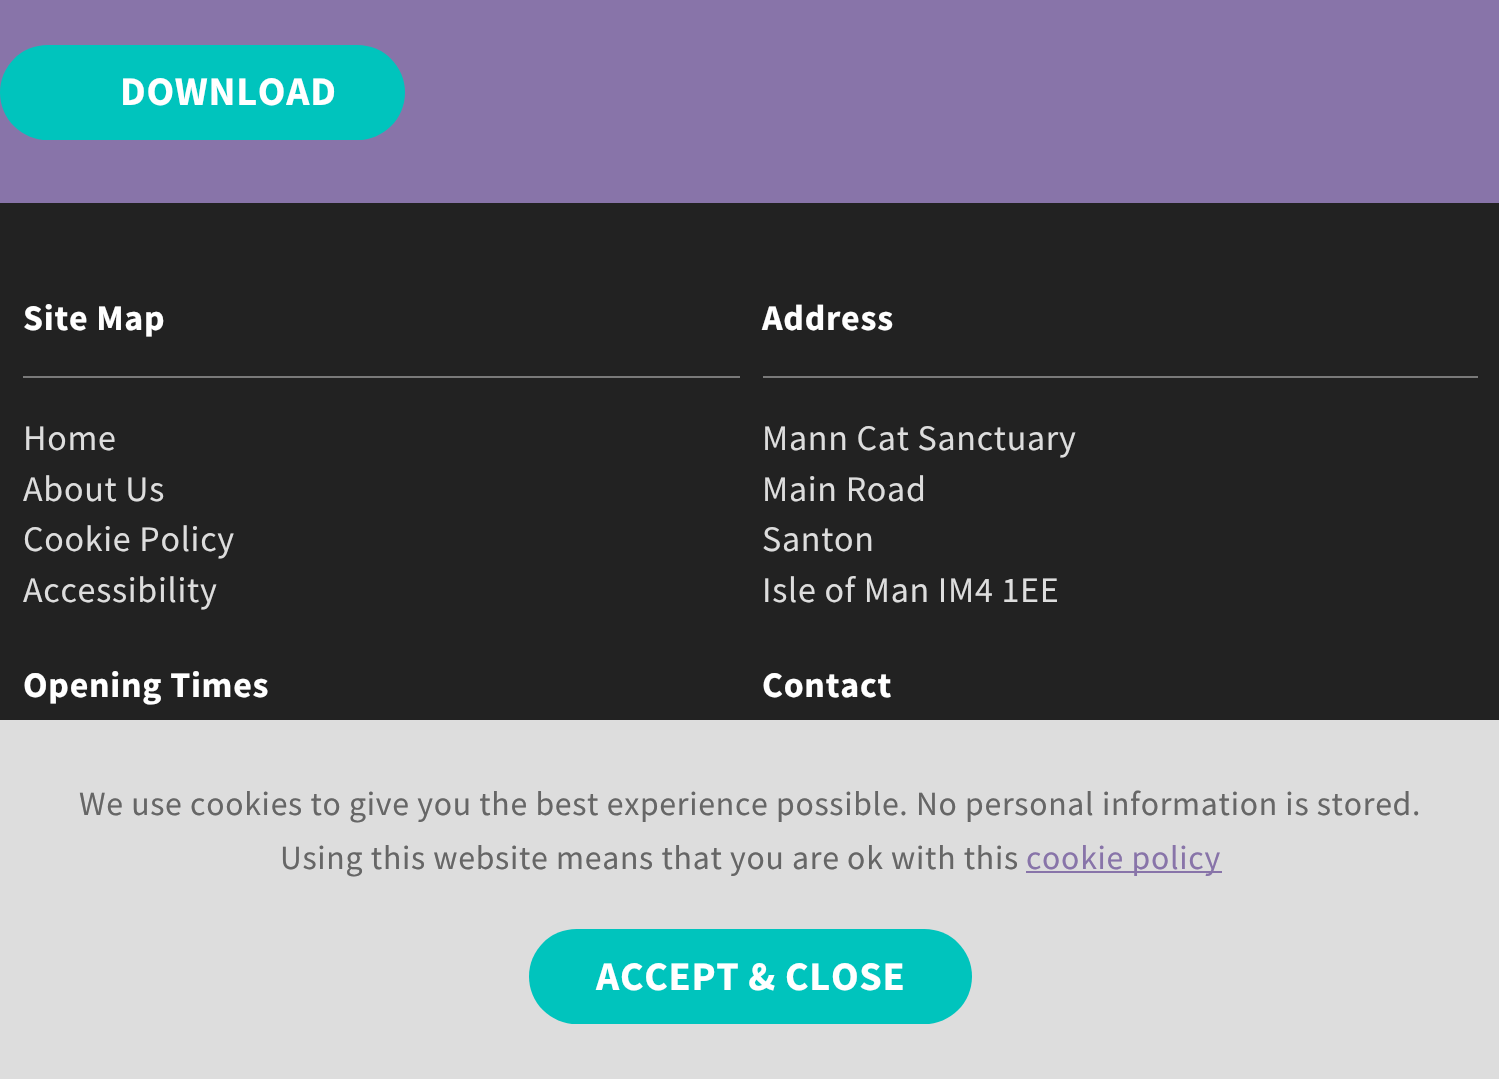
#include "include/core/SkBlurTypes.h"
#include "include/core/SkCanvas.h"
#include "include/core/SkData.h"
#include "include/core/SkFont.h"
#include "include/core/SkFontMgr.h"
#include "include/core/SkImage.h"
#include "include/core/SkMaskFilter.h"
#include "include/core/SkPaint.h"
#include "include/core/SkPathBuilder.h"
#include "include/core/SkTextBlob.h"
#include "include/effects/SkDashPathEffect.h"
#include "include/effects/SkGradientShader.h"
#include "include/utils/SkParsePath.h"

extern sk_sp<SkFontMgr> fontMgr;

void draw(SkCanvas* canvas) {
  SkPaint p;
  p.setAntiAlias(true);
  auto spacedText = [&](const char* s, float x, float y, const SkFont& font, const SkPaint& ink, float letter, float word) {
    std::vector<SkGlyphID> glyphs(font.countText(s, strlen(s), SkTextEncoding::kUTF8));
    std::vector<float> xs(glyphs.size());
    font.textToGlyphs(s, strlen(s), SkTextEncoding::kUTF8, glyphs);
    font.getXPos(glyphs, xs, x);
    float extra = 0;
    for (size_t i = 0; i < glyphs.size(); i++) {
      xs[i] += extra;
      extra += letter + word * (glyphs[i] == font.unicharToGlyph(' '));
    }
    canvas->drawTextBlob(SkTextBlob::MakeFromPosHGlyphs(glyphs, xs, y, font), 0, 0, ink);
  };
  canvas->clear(SkColorSetRGB(136, 116, 169));
  p.setColor(SkColorSetRGB(0, 196, 189));
  canvas->drawRoundRect(SkRect::MakeLTRB(0, 45, 405, 140), 47.5f, 47.5f, p);
  p.setColor(SkColorSetRGB(34, 34, 34));
  canvas->drawRect(SkRect::MakeLTRB(0, 203, 1499, 720), p);
  p.setColor(SkColorSetRGB(122, 122, 122));
  canvas->drawRect(SkRect::MakeLTRB(23, 376, 740, 378), p);
  canvas->drawRect(SkRect::MakeLTRB(763, 376, 1478, 378), p);
  p.setColor(SkColorSetRGB(221, 221, 221));
  canvas->drawRect(SkRect::MakeLTRB(0, 720, 1499, 1079), p);
  p.setColor(SkColorSetRGB(136, 116, 169));
  canvas->drawRect(SkRect::MakeLTRB(1026, 871, 1222, 873), p);
  p.setColor(SkColorSetRGB(0, 196, 189));
  canvas->drawRoundRect(SkRect::MakeLTRB(529, 929, 972, 1024), 47.5f, 47.5f, p);
  SkFont font1(fontMgr->matchFamilyStyle("Source Sans Pro", SkFontStyle::Bold()), 40.5f);
  font1.setSubpixel(true);
  p.setColor(SK_ColorWHITE);
  spacedText("DOWNLOAD", 120, 105, font1, p, 0.72f, 0);
  SkFont font2(fontMgr->matchFamilyStyle("Source Sans Pro", SkFontStyle::Bold()), 36);
  font2.setSubpixel(true);
  spacedText("Site Map", 23, 330, font2, p, 0.72f, 0);
  SkFont font3(fontMgr->matchFamilyStyle("Source Sans Pro", SkFontStyle::Normal()), 36);
  font3.setSubpixel(true);
  p.setColor(SkColorSetRGB(221, 221, 221));
  spacedText("Home", 23, 450, font3, p, 0.72f, 0);
  spacedText("About Us", 23, 501, font3, p, 0.72f, 0);
  spacedText("Cookie Policy", 23, 551, font3, p, 0.72f, 0);
  spacedText("Accessibility", 23, 602, font3, p, 0.72f, 0);
  p.setColor(SK_ColorWHITE);
  spacedText("Address", 762, 330, font2, p, 0.72f, 0);
  p.setColor(SkColorSetRGB(221, 221, 221));
  spacedText("Mann Cat Sanctuary", 762, 450, font3, p, 0.72f, 0);
  spacedText("Main Road", 762, 501, font3, p, 0.72f, 0);
  spacedText("Santon", 762, 551, font3, p, 0.72f, 0);
  spacedText("Isle of Man IM4 1EE", 762, 602, font3, p, 0.72f, 0);
  p.setColor(SK_ColorWHITE);
  spacedText("Opening Times", 23, 697, font2, p, 0.72f, 0);
  spacedText("Contact", 762, 697, font2, p, 0.72f, 0);
  SkFont font4(fontMgr->matchFamilyStyle("Source Sans Pro", SkFontStyle::Normal()), 33.75f);
  font4.setSubpixel(true);
  p.setColor(SkColorSetRGB(102, 102, 102));
  spacedText("We use cookies to give you the best experience possible. No personal information is stored.", 79, 815, font4, p, 0.72f, 0);
  spacedText("Using this website means that you are ok with this", 280, 869, font4, p, 0.72f, 0);
  p.setColor(SkColorSetRGB(136, 116, 169));
  spacedText("cookie policy", 1026, 869, font4, p, 0.72f, 0);
  p.setColor(SK_ColorWHITE);
  spacedText("ACCEPT & CLOSE", 596, 990, font1, p, 0.72f, 0);
}
